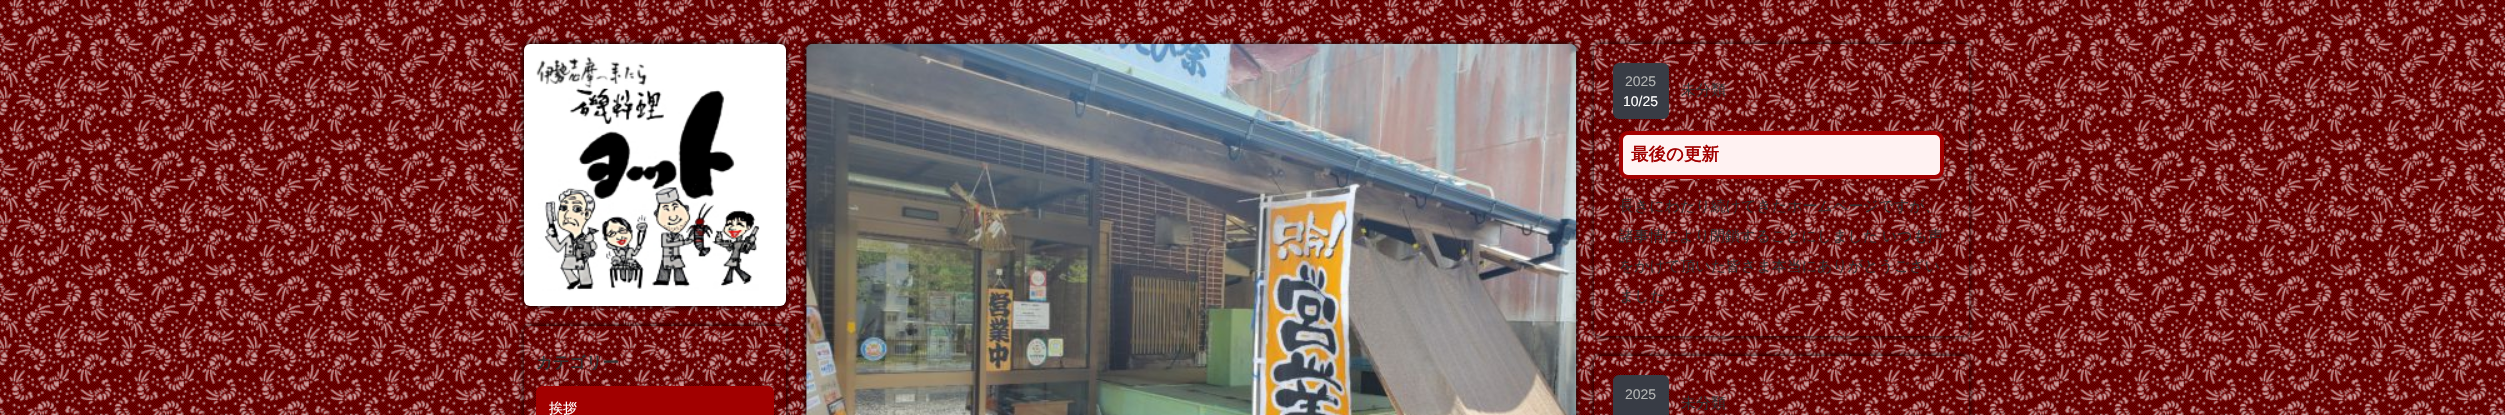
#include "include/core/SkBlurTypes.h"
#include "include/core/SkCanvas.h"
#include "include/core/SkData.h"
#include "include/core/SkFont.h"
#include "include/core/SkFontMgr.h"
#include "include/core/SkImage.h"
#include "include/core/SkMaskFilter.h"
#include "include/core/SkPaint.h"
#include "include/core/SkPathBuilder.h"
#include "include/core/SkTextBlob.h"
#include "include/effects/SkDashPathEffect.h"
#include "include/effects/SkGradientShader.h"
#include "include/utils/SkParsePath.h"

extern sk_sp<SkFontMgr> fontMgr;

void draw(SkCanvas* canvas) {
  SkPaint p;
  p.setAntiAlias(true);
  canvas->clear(SK_ColorWHITE);
  canvas->drawImageRect(SkImages::DeferredFromEncodedData(SkData::MakeFromFileName("images/1.png")), SkRect::MakeLTRB(0, 0, 2505, 415), SkSamplingOptions());
  p.setColor(SK_ColorBLACK);
  p.setMaskFilter(SkMaskFilter::MakeBlur(kNormal_SkBlurStyle, 3));
  canvas->drawRoundRect(SkRect::MakeLTRB(524, 44, 786, 306), 6, 6, p);
  p.setMaskFilter(nullptr);
  p.setColor(SK_ColorWHITE);
  canvas->drawRoundRect(SkRect::MakeLTRB(524, 44, 786, 306), 6, 6, p);
  canvas->drawImageRect(SkImages::DeferredFromEncodedData(SkData::MakeFromFileName("images/2.png")), SkRect::MakeLTRB(536, 56, 760, 291), SkSamplingOptions());
  canvas->save();
  canvas->clipPath(SkPathBuilder(SkPathFillType::kEvenOdd).moveTo(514, 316).lineTo(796, 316).lineTo(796, 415).lineTo(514, 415).close().moveTo(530, 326).lineTo(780, 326).cubicTo(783.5f, 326, 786, 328.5f, 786, 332).lineTo(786, 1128).cubicTo(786, 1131.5f, 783.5f, 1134, 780, 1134).lineTo(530, 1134).cubicTo(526.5f, 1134, 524, 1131.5f, 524, 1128).lineTo(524, 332).cubicTo(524, 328.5f, 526.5f, 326, 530, 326).close().detach(), true);
  p.setColor(SK_ColorBLACK);
  p.setMaskFilter(SkMaskFilter::MakeBlur(kNormal_SkBlurStyle, 3));
  canvas->drawRoundRect(SkRect::MakeLTRB(524, 326, 786, 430), 6, 6, p);
  p.setMaskFilter(nullptr);
  canvas->restore();
  p.setColor(SkColorSetRGB(162, 0, 0));
  canvas->drawRoundRect(SkRect::MakeLTRB(536, 386, 774, 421), 6, 6, p);
  p.setColor(SK_ColorBLACK);
  p.setMaskFilter(SkMaskFilter::MakeBlur(kNormal_SkBlurStyle, 3));
  canvas->drawRoundRect(SkRect::MakeLTRB(806, 44, 1576, 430), 6, 6, p);
  p.setMaskFilter(nullptr);
  canvas->drawImageRect(SkImages::DeferredFromEncodedData(SkData::MakeFromFileName("images/3.png")), SkRect::MakeLTRB(806, 43, 1577, 415), SkSamplingOptions());
  canvas->save();
  canvas->clipPath(SkPathBuilder(SkPathFillType::kEvenOdd).moveTo(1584, 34).lineTo(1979, 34).lineTo(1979, 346).lineTo(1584, 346).close().moveTo(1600, 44).lineTo(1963, 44).cubicTo(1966.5f, 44, 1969, 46.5f, 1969, 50).lineTo(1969, 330).cubicTo(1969, 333.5f, 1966.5f, 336, 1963, 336).lineTo(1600, 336).cubicTo(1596.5f, 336, 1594, 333.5f, 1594, 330).lineTo(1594, 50).cubicTo(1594, 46.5f, 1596.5f, 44, 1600, 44).close().detach(), true);
  p.setMaskFilter(SkMaskFilter::MakeBlur(kNormal_SkBlurStyle, 3));
  canvas->drawRoundRect(SkRect::MakeLTRB(1594, 44, 1969, 336), 6, 6, p);
  p.setMaskFilter(nullptr);
  canvas->restore();
  p.setColor(SkColorSetRGB(56, 60, 69));
  canvas->drawRoundRect(SkRect::MakeLTRB(1613, 63, 1669, 119), 6, 6, p);
  p.setColor(SkColorSetRGB(255, 242, 242));
  canvas->drawRoundRect(SkRect::MakeLTRB(1621, 133, 1942, 177), 7, 7, p);
  p.setStyle(SkPaint::kStroke_Style);
  p.setStrokeWidth(4);
  p.setColor(SkColorSetRGB(162, 0, 0));
  canvas->drawRoundRect(SkRect::MakeLTRB(1621, 133, 1942, 177), 7, 7, p);
  canvas->save();
  canvas->clipPath(SkPathBuilder(SkPathFillType::kEvenOdd).moveTo(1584, 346).lineTo(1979, 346).lineTo(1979, 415).lineTo(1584, 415).close().moveTo(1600, 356).lineTo(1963, 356).cubicTo(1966.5f, 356, 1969, 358.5f, 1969, 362).lineTo(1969, 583).cubicTo(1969, 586.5f, 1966.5f, 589, 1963, 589).lineTo(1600, 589).cubicTo(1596.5f, 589, 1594, 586.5f, 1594, 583).lineTo(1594, 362).cubicTo(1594, 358.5f, 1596.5f, 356, 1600, 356).close().detach(), true);
  p.setStyle(SkPaint::kFill_Style);
  p.setColor(SK_ColorBLACK);
  p.setMaskFilter(SkMaskFilter::MakeBlur(kNormal_SkBlurStyle, 3));
  canvas->drawRoundRect(SkRect::MakeLTRB(1594, 356, 1969, 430), 6, 6, p);
  p.setMaskFilter(nullptr);
  canvas->restore();
  p.setColor(SkColorSetRGB(56, 60, 69));
  canvas->drawRoundRect(SkRect::MakeLTRB(1613, 375, 1669, 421), 6, 6, p);
  SkFont font1(fontMgr->matchFamilyStyle("WenQuanYi Zen Hei", SkFontStyle::Bold()), 16.25f);
  font1.setSubpixel(true);
  p.setColor(SkColorSetRGB(51, 51, 51));
  canvas->drawString("カテゴリー", 536, 368, font1, p);
  SkFont font2(fontMgr->matchFamilyStyle("WenQuanYi Zen Hei", SkFontStyle(500, SkFontStyle::kNormal_Width, SkFontStyle::kUpright_Slant)), 14);
  font2.setSubpixel(true);
  p.setColor(SK_ColorWHITE);
  canvas->drawString("挨拶", 549, 413, font2, p);
  SkFont font3(fontMgr->matchFamilyStyle("Liberation Sans", SkFontStyle::Normal()), 14);
  font3.setSubpixel(true);
  p.setColor(SkColorSetRGB(179, 181, 180));
  canvas->drawString("2025", 1625, 86, font3, p);
  p.setColor(SK_ColorWHITE);
  canvas->drawString("10/25", 1623, 106, font3, p);
  SkFont font4(fontMgr->matchFamilyStyle("WenQuanYi Zen Hei", SkFontStyle(500, SkFontStyle::kNormal_Width, SkFontStyle::kUpright_Slant)), 15);
  font4.setSubpixel(true);
  p.setColor(SkColorSetRGB(51, 51, 51));
  canvas->drawString("未分類", 1681, 95, font4, p);
  SkFont font5(fontMgr->matchFamilyStyle("WenQuanYi Zen Hei", SkFontStyle::Bold()), 17.5f);
  font5.setSubpixel(true);
  p.setColor(SkColorSetRGB(162, 0, 0));
  canvas->drawString("最後の更新", 1631, 160, font5, p);
  p.setColor(SkColorSetRGB(51, 51, 51));
  canvas->drawString("長きにわたり続けてきたホームページですが、", 1619, 211, font4, p);
  canvas->drawString("諸事情により閉鎖することにしました", 1619, 241, font4, p);
  canvas->drawString("いつも声", 1882, 241, font4, p);
  canvas->drawString("をかけて頂いた皆さま本当にありがとうござい", 1619, 271, font4, p);
  canvas->drawString("ました", 1619, 301, font4, p);
  SkFont font6(fontMgr->matchFamilyStyle("Liberation Sans", SkFontStyle::Normal()), 15);
  font6.setSubpixel(true);
  canvas->drawString("…", 1665, 301, font6, p);
  p.setColor(SkColorSetRGB(179, 181, 180));
  canvas->drawString("2025", 1625, 399, font3, p);
  p.setColor(SkColorSetRGB(51, 51, 51));
  canvas->drawString("未分類", 1681, 408, font4, p);
}
